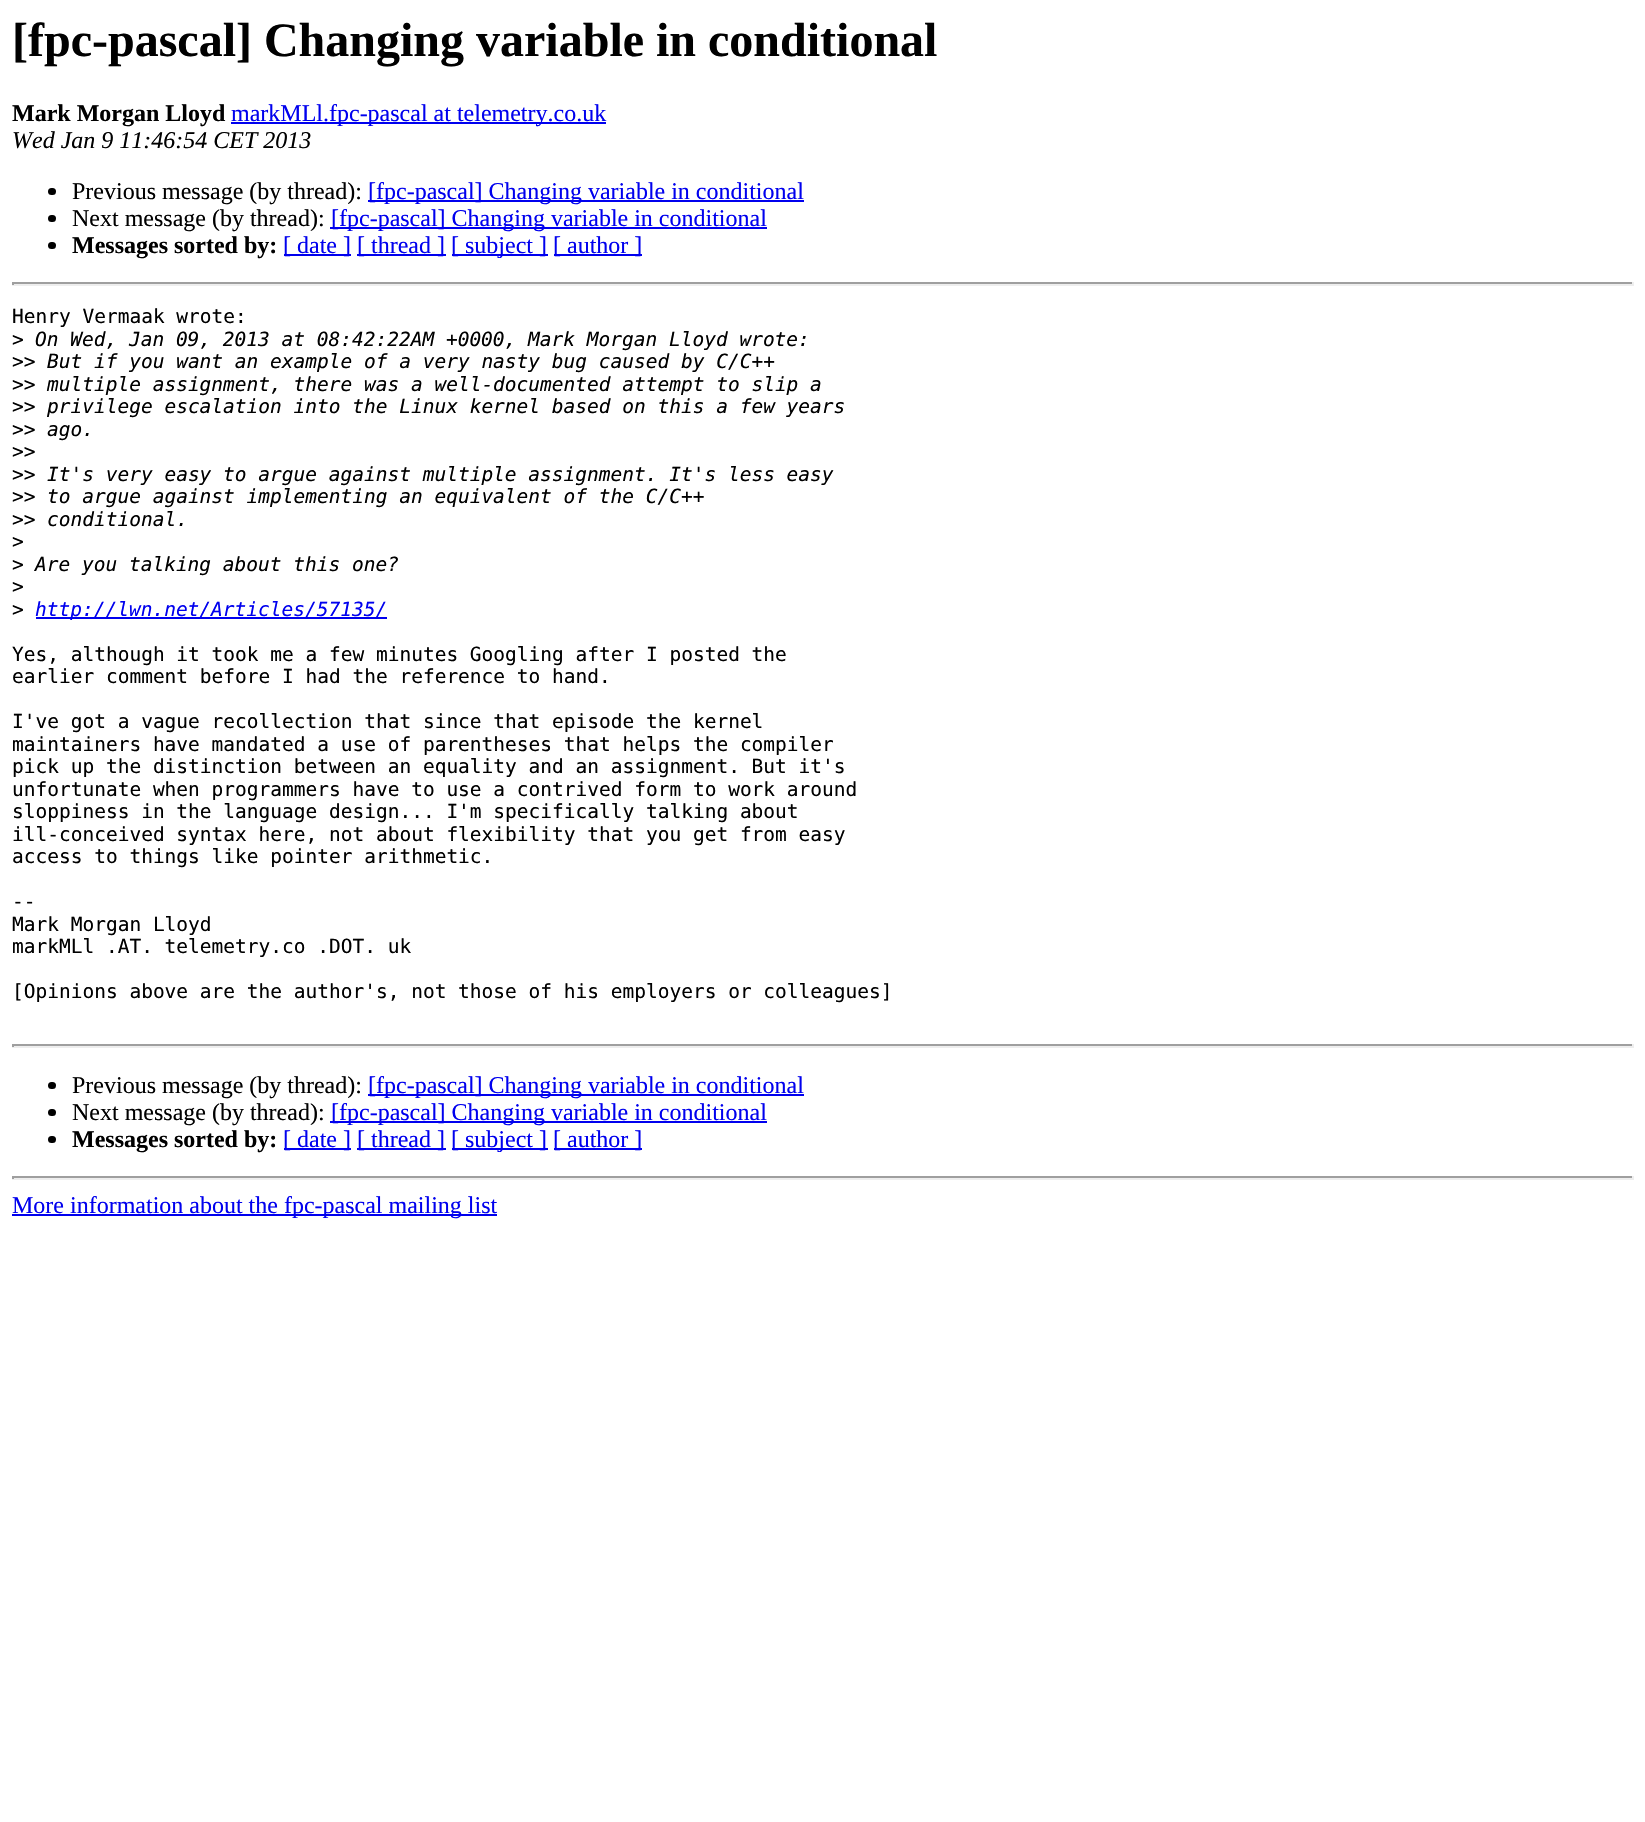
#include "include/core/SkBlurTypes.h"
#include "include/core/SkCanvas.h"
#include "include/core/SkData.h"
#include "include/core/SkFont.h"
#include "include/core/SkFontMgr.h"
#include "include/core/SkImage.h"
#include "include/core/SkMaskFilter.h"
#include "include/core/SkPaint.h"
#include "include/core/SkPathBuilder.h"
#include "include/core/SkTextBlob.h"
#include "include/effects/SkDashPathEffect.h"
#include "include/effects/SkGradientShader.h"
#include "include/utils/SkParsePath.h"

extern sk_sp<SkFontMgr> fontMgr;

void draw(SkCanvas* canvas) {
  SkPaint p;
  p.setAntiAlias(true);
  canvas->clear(SK_ColorWHITE);
  p.setColor(SkColorSetRGB(0, 0, 238));
  canvas->drawRect(SkRect::MakeLTRB(231, 122, 606, 124), p);
  p.setColor(SK_ColorBLACK);
  canvas->drawRoundRect(SkRect::MakeLTRB(48, 188, 56, 195), 3.5f, 3.5f, p);
  p.setColor(SkColorSetRGB(0, 0, 238));
  canvas->drawRect(SkRect::MakeLTRB(368, 200, 804, 202), p);
  p.setColor(SK_ColorBLACK);
  canvas->drawRoundRect(SkRect::MakeLTRB(48, 215, 56, 222), 3.5f, 3.5f, p);
  p.setColor(SkColorSetRGB(0, 0, 238));
  canvas->drawRect(SkRect::MakeLTRB(330, 227, 767, 229), p);
  p.setColor(SK_ColorBLACK);
  canvas->drawRoundRect(SkRect::MakeLTRB(48, 242, 56, 249), 3.5f, 3.5f, p);
  p.setColor(SkColorSetRGB(0, 0, 238));
  canvas->drawRect(SkRect::MakeLTRB(284, 254, 351, 256), p);
  canvas->drawRect(SkRect::MakeLTRB(357, 254, 446, 256), p);
  canvas->drawRect(SkRect::MakeLTRB(452, 254, 548, 256), p);
  canvas->drawRect(SkRect::MakeLTRB(554, 254, 642, 256), p);
  p.setColor(SkColorSetRGB(159, 159, 159));
  canvas->drawRect(SkRect::MakeLTRB(12, 282, 1634, 284), p);
  p.setColor(SkColorSetRGB(238, 238, 238));
  canvas->drawRect(SkRect::MakeLTRB(1632, 282, 1634, 285), p);
  canvas->drawRect(SkRect::MakeLTRB(12, 284, 1634, 286), p);
  p.setColor(SkColorSetRGB(159, 159, 159));
  canvas->drawRect(SkRect::MakeLTRB(12, 282, 14, 285), p);
  p.setColor(SkColorSetRGB(0, 0, 238));
  canvas->drawRect(SkRect::MakeLTRB(36, 617, 387, 619), p);
  p.setColor(SkColorSetRGB(159, 159, 159));
  canvas->drawRect(SkRect::MakeLTRB(12, 1044, 1634, 1046), p);
  p.setColor(SkColorSetRGB(238, 238, 238));
  canvas->drawRect(SkRect::MakeLTRB(1632, 1044, 1634, 1047), p);
  canvas->drawRect(SkRect::MakeLTRB(12, 1046, 1634, 1048), p);
  p.setColor(SkColorSetRGB(159, 159, 159));
  canvas->drawRect(SkRect::MakeLTRB(12, 1044, 14, 1047), p);
  p.setColor(SK_ColorBLACK);
  canvas->drawRoundRect(SkRect::MakeLTRB(48, 1082, 56, 1089), 3.5f, 3.5f, p);
  p.setColor(SkColorSetRGB(0, 0, 238));
  canvas->drawRect(SkRect::MakeLTRB(368, 1094, 804, 1096), p);
  p.setColor(SK_ColorBLACK);
  canvas->drawRoundRect(SkRect::MakeLTRB(48, 1109, 56, 1116), 3.5f, 3.5f, p);
  p.setColor(SkColorSetRGB(0, 0, 238));
  canvas->drawRect(SkRect::MakeLTRB(330, 1121, 767, 1123), p);
  p.setColor(SK_ColorBLACK);
  canvas->drawRoundRect(SkRect::MakeLTRB(48, 1136, 56, 1143), 3.5f, 3.5f, p);
  p.setColor(SkColorSetRGB(0, 0, 238));
  canvas->drawRect(SkRect::MakeLTRB(284, 1148, 351, 1150), p);
  canvas->drawRect(SkRect::MakeLTRB(357, 1148, 446, 1150), p);
  canvas->drawRect(SkRect::MakeLTRB(452, 1148, 548, 1150), p);
  canvas->drawRect(SkRect::MakeLTRB(554, 1148, 642, 1150), p);
  p.setColor(SkColorSetRGB(159, 159, 159));
  canvas->drawRect(SkRect::MakeLTRB(12, 1176, 1634, 1178), p);
  p.setColor(SkColorSetRGB(238, 238, 238));
  canvas->drawRect(SkRect::MakeLTRB(1632, 1176, 1634, 1179), p);
  canvas->drawRect(SkRect::MakeLTRB(12, 1178, 1634, 1180), p);
  p.setColor(SkColorSetRGB(159, 159, 159));
  canvas->drawRect(SkRect::MakeLTRB(12, 1176, 14, 1179), p);
  p.setColor(SkColorSetRGB(0, 0, 238));
  canvas->drawRect(SkRect::MakeLTRB(12, 1214, 497, 1216), p);
  SkFont font1(fontMgr->matchFamilyStyle("Liberation Serif", SkFontStyle::Bold()), 48);
  font1.setSubpixel(true);
  p.setColor(SK_ColorBLACK);
  canvas->drawString("[fpc-pascal] Changing variable in conditional", 12, 56, font1, p);
  SkFont font2(fontMgr->matchFamilyStyle("Liberation Serif", SkFontStyle::Bold()), 24);
  font2.setSubpixel(true);
  canvas->drawString("Mark Morgan Lloyd", 12, 121, font2, p);
  SkFont font3(fontMgr->matchFamilyStyle("Liberation Serif", SkFontStyle::Normal()), 24);
  font3.setSubpixel(true);
  p.setColor(SkColorSetRGB(0, 0, 238));
  canvas->drawString("markMLl.fpc-pascal at telemetry.co.uk", 231, 121, font3, p);
  SkFont font4(fontMgr->matchFamilyStyle("Liberation Serif", SkFontStyle::Italic()), 24);
  font4.setSubpixel(true);
  p.setColor(SK_ColorBLACK);
  canvas->drawString("Wed Jan 9 11:46:54 CET 2013", 12, 148, font4, p);
  canvas->drawString("Previous message (by thread):", 72, 199, font3, p);
  p.setColor(SkColorSetRGB(0, 0, 238));
  canvas->drawString("[fpc-pascal] Changing variable in conditional", 368, 199, font3, p);
  p.setColor(SK_ColorBLACK);
  canvas->drawString("Next message (by thread):", 72, 226, font3, p);
  p.setColor(SkColorSetRGB(0, 0, 238));
  canvas->drawString("[fpc-pascal] Changing variable in conditional", 331, 226, font3, p);
  p.setColor(SK_ColorBLACK);
  canvas->drawString("Messages sorted by:", 72, 253, font2, p);
  p.setColor(SkColorSetRGB(0, 0, 238));
  canvas->drawString("[ date ]", 283, 253, font3, p);
  canvas->drawString("[ thread ]", 357, 253, font3, p);
  canvas->drawString("[ subject ]", 451, 253, font3, p);
  canvas->drawString("[ author ]", 553, 253, font3, p);
  SkFont font5(fontMgr->matchFamilyStyle("DejaVu Sans Mono", SkFontStyle::Normal()), 19.5f);
  font5.setSubpixel(true);
  p.setColor(SK_ColorBLACK);
  canvas->drawString("Henry Vermaak wrote:", 12, 323, font5, p);
  canvas->drawString(">", 12, 346, font5, p);
  SkFont font6(fontMgr->matchFamilyStyle("DejaVu Sans Mono", SkFontStyle::Italic()), 19.5f);
  font6.setSubpixel(true);
  canvas->drawString("On Wed, Jan 09, 2013 at 08:42:22AM +0000, Mark Morgan Lloyd wrote:", 35, 346, font6, p);
  canvas->drawString(">>", 12, 368, font5, p);
  canvas->drawString("But if you want an example of a very nasty bug caused by C/C++", 47, 368, font6, p);
  canvas->drawString(">>", 12, 391, font5, p);
  canvas->drawString("multiple assignment, there was a well-documented attempt to slip a", 47, 391, font6, p);
  canvas->drawString(">>", 12, 413, font5, p);
  canvas->drawString("privilege escalation into the Linux kernel based on this a few years", 47, 413, font6, p);
  canvas->drawString(">>", 12, 436, font5, p);
  canvas->drawString("ago.", 47, 436, font6, p);
  canvas->drawString(">>", 12, 458, font5, p);
  canvas->drawString(">>", 12, 481, font5, p);
  canvas->drawString("It's very easy to argue against multiple assignment. It's less easy", 47, 481, font6, p);
  canvas->drawString(">>", 12, 503, font5, p);
  canvas->drawString("to argue against implementing an equivalent of the C/C++", 47, 503, font6, p);
  canvas->drawString(">>", 12, 526, font5, p);
  canvas->drawString("conditional.", 47, 526, font6, p);
  canvas->drawString(">", 12, 548, font5, p);
  canvas->drawString(">", 12, 571, font5, p);
  canvas->drawString("Are you talking about this one?", 35, 571, font6, p);
  canvas->drawString(">", 12, 593, font5, p);
  canvas->drawString(">", 12, 616, font5, p);
  p.setColor(SkColorSetRGB(0, 0, 238));
  canvas->drawString("http://lwn.net/Articles/57135/", 35, 616, font6, p);
  p.setColor(SK_ColorBLACK);
  canvas->drawString("Yes, although it took me a few minutes Googling after I posted the", 12, 661, font5, p);
  canvas->drawString("earlier comment before I had the reference to hand.", 12, 683, font5, p);
  canvas->drawString("I've got a vague recollection that since that episode the kernel", 12, 728, font5, p);
  canvas->drawString("maintainers have mandated a use of parentheses that helps the compiler", 12, 751, font5, p);
  canvas->drawString("pick up the distinction between an equality and an assignment. But it's", 12, 773, font5, p);
  canvas->drawString("unfortunate when programmers have to use a contrived form to work around", 12, 796, font5, p);
  canvas->drawString("sloppiness in the language design... I'm specifically talking about", 12, 818, font5, p);
  canvas->drawString("ill-conceived syntax here, not about flexibility that you get from easy", 12, 841, font5, p);
  canvas->drawString("access to things like pointer arithmetic.", 12, 863, font5, p);
  canvas->drawString("--", 12, 908, font5, p);
  canvas->drawString("Mark Morgan Lloyd", 12, 931, font5, p);
  canvas->drawString("markMLl .AT. telemetry.co .DOT. uk", 12, 953, font5, p);
  canvas->drawString("[Opinions above are the author's, not those of his employers or colleagues]", 12, 998, font5, p);
  canvas->drawString("Previous message (by thread):", 72, 1093, font3, p);
  p.setColor(SkColorSetRGB(0, 0, 238));
  canvas->drawString("[fpc-pascal] Changing variable in conditional", 368, 1093, font3, p);
  p.setColor(SK_ColorBLACK);
  canvas->drawString("Next message (by thread):", 72, 1120, font3, p);
  p.setColor(SkColorSetRGB(0, 0, 238));
  canvas->drawString("[fpc-pascal] Changing variable in conditional", 331, 1120, font3, p);
  p.setColor(SK_ColorBLACK);
  canvas->drawString("Messages sorted by:", 72, 1147, font2, p);
  p.setColor(SkColorSetRGB(0, 0, 238));
  canvas->drawString("[ date ]", 283, 1147, font3, p);
  canvas->drawString("[ thread ]", 357, 1147, font3, p);
  canvas->drawString("[ subject ]", 451, 1147, font3, p);
  canvas->drawString("[ author ]", 553, 1147, font3, p);
  canvas->drawString("More information about the fpc-pascal mailing list", 12, 1213, font3, p);
}
